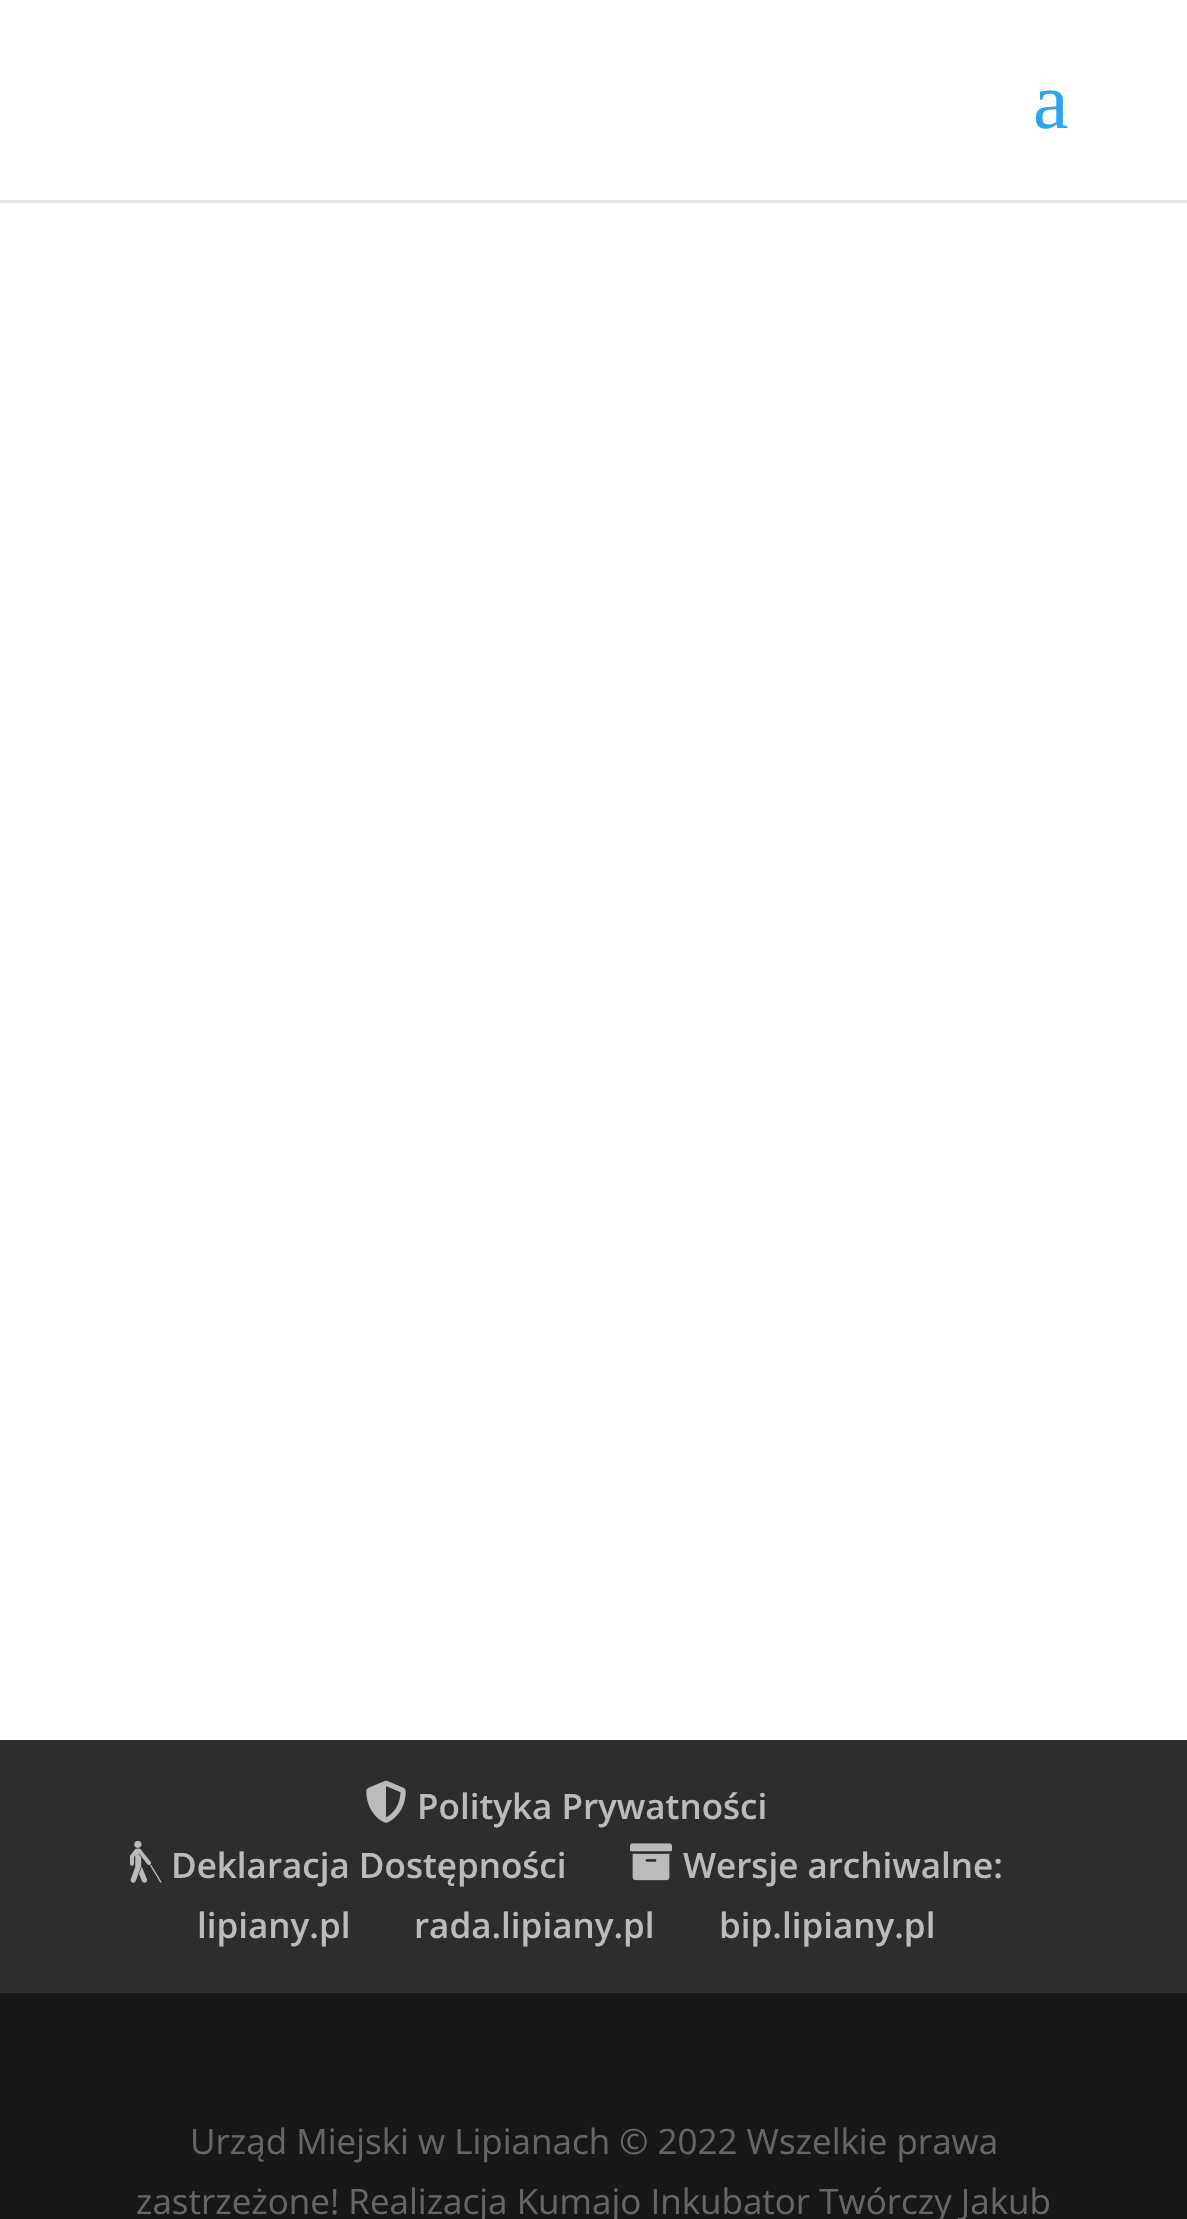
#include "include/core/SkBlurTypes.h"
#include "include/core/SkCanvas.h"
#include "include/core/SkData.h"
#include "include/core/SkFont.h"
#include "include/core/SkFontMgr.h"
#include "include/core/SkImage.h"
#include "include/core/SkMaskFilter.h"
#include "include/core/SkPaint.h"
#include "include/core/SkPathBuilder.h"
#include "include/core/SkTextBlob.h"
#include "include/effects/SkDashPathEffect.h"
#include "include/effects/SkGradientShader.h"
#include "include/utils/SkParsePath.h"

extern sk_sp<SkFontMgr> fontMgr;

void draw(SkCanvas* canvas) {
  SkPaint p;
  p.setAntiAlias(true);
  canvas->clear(SK_ColorWHITE);
  p.setColor(SkColorSetRGB(230, 230, 230));
  canvas->drawPath(SkPathBuilder().moveTo(0, 200).lineTo(0, 203).lineTo(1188, 203).lineTo(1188, 3).lineTo(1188, 200).close().detach(), p);
  p.setColor(SkColorSetRGB(45, 45, 45));
  canvas->drawRect(SkRect::MakeLTRB(0, 1740, 1187, 1993), p);
  canvas->drawImageRect(SkImages::DeferredFromEncodedData(SkData::MakeFromFileName("images/1.png")), SkRect::MakeLTRB(366, 1780, 406, 1823), SkSamplingOptions());
  canvas->drawImageRect(SkImages::DeferredFromEncodedData(SkData::MakeFromFileName("images/2.png")), SkRect::MakeLTRB(130, 1840, 162, 1883), SkSamplingOptions());
  canvas->drawImageRect(SkImages::DeferredFromEncodedData(SkData::MakeFromFileName("images/3.png")), SkRect::MakeLTRB(630, 1843, 672, 1881), SkSamplingOptions());
  p.setColor(SkColorSetRGB(23, 23, 23));
  canvas->drawRect(SkRect::MakeLTRB(0, 1993, 1187, 2219), p);
  SkFont font1(fontMgr->matchFamilyStyle("Liberation Serif", SkFontStyle::Normal()), 80);
  font1.setSubpixel(true);
  p.setColor(SkColorSetRGB(46, 163, 242));
  canvas->drawString("a", 1033, 128, font1, p);
  SkFont font2(fontMgr->matchFamilyStyle("Open Sans", SkFontStyle(600, SkFontStyle::kNormal_Width, SkFontStyle::kUpright_Slant)), 35);
  font2.setSubpixel(true);
  p.setColor(SkColorSetRGB(187, 187, 187));
  canvas->drawString("Polityka Prywatności", 417, 1819, font2, p);
  canvas->drawString("Deklaracja Dostępności", 171, 1878, font2, p);
  canvas->drawString("Wersje archiwalne:", 683, 1878, font2, p);
  canvas->drawString("lipiany.pl", 197, 1938, font2, p);
  canvas->drawString("rada.lipiany.pl", 414, 1938, font2, p);
  canvas->drawString("bip.lipiany.pl", 719, 1938, font2, p);
  SkFont font3(fontMgr->matchFamilyStyle("Open Sans", SkFontStyle::Normal()), 35);
  font3.setSubpixel(true);
  p.setColor(SkColorSetRGB(102, 102, 102));
  canvas->drawString("Urząd Miejski w Lipianach © 2022 Wszelkie prawa", 190, 2154, font3, p);
  canvas->drawString("zastrzeżone! Realizacja Kumajo Inkubator Twórczy Jakub", 136, 2214, font3, p);
}
